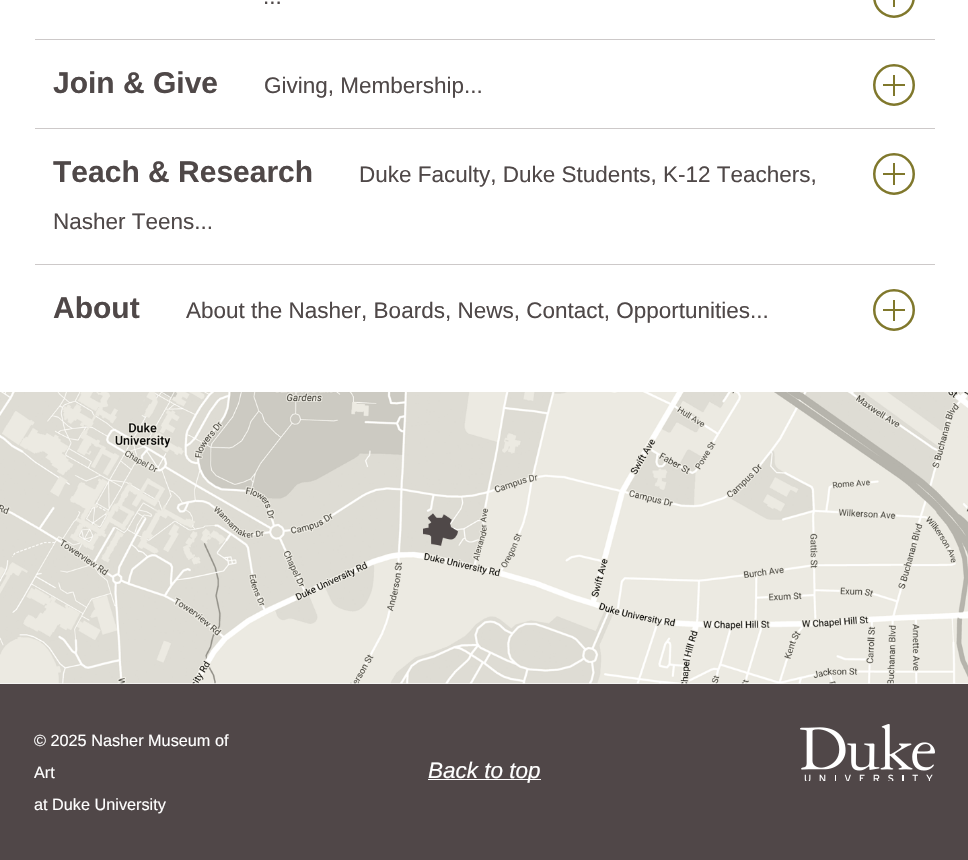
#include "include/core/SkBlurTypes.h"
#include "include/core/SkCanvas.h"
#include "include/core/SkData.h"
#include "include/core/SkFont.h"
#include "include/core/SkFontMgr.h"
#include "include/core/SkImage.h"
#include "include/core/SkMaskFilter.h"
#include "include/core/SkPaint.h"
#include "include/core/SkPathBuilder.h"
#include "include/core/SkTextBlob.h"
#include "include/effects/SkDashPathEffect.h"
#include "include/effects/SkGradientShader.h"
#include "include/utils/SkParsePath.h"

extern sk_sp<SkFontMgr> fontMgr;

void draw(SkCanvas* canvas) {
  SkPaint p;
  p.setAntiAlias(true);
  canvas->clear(SK_ColorWHITE);
  p.setColor(SkColorSetRGB(205, 201, 201));
  canvas->drawRect(SkRect::MakeLTRB(35, 39, 935, 40), p);
  p.setStyle(SkPaint::kStroke_Style);
  p.setStrokeWidth(2.5f);
  p.setColor(SkColorSetRGB(128, 120, 44));
  canvas->drawCircle(894, -3, 19.75f, p);
  p.setStyle(SkPaint::kFill_Style);
  canvas->drawRect(SkRect::MakeLTRB(893, 0, 895, 7), p);
  p.setColor(SkColorSetRGB(205, 201, 201));
  canvas->drawRect(SkRect::MakeLTRB(35, 128, 935, 129), p);
  p.setStyle(SkPaint::kStroke_Style);
  p.setColor(SkColorSetRGB(128, 120, 44));
  canvas->drawCircle(894, 85, 19.75f, p);
  p.setStyle(SkPaint::kFill_Style);
  canvas->drawRect(SkRect::MakeLTRB(893, 75, 895, 96), p);
  canvas->drawRect(SkRect::MakeLTRB(883, 84, 905, 86), p);
  p.setColor(SkColorSetRGB(205, 201, 201));
  canvas->drawRect(SkRect::MakeLTRB(35, 264, 935, 265), p);
  p.setStyle(SkPaint::kStroke_Style);
  p.setColor(SkColorSetRGB(128, 120, 44));
  canvas->drawCircle(894, 174, 19.75f, p);
  p.setStyle(SkPaint::kFill_Style);
  canvas->drawRect(SkRect::MakeLTRB(893, 163, 895, 185), p);
  canvas->drawRect(SkRect::MakeLTRB(883, 173, 905, 175), p);
  p.setStyle(SkPaint::kStroke_Style);
  canvas->drawCircle(894, 310, 19.75f, p);
  p.setStyle(SkPaint::kFill_Style);
  canvas->drawRect(SkRect::MakeLTRB(893, 300, 895, 321), p);
  canvas->drawRect(SkRect::MakeLTRB(883, 309, 905, 311), p);
  p.setColor(SkColorSetRGB(249, 249, 249));
  canvas->drawRect(SkRect::MakeLTRB(0, 683, 968, 684), p);
  canvas->drawImageRect(SkImages::DeferredFromEncodedData(SkData::MakeFromFileName("images/1.png")), SkRect::MakeLTRB(0, 392, 968, 684), SkSamplingOptions());
  p.setColor(SkColorSetRGB(80, 71, 72));
  canvas->drawRect(SkRect::MakeLTRB(0, 684, 968, 860), p);
  p.setColor(SK_ColorWHITE);
  canvas->drawRect(SkRect::MakeLTRB(428, 779, 541, 780), p);
  canvas->drawImageRect(SkImages::DeferredFromEncodedData(SkData::MakeFromFileName("images/2.png")), SkRect::MakeLTRB(800, 724, 935, 781), SkSamplingOptions());
  SkFont font1(fontMgr->matchFamilyStyle("Liberation Sans", SkFontStyle::Normal()), 22.5f);
  font1.setSubpixel(true);
  p.setColor(SkColorSetRGB(79, 72, 72));
  canvas->drawString("...", 263, 4, font1, p);
  SkFont font2(fontMgr->matchFamilyStyle("Liberation Sans", SkFontStyle::Bold()), 30);
  font2.setSubpixel(true);
  canvas->drawString("Join & Give", 53, 93, font2, p);
  canvas->drawString("Giving, Membership...", 264, 93, font1, p);
  canvas->drawString("Teach & Research", 53, 182, font2, p);
  canvas->drawString("Duke Faculty, Duke Students, K-12 Teachers,", 359, 182, font1, p);
  canvas->drawString("Nasher Teens...", 53, 229, font1, p);
  canvas->drawString("About", 53, 318, font2, p);
  canvas->drawString("About the Nasher, Boards, News, Contact, Opportunities...", 186, 318, font1, p);
  SkFont font3(fontMgr->matchFamilyStyle("Liberation Sans", SkFontStyle::Normal()), 16.25f);
  font3.setSubpixel(true);
  p.setColor(SK_ColorWHITE);
  canvas->drawString("© 2025 Nasher Museum of", 34, 746, font3, p);
  canvas->drawString("Art", 34, 778, font3, p);
  SkFont font4(fontMgr->matchFamilyStyle("Liberation Sans", SkFontStyle::Italic()), 22.5f);
  font4.setSubpixel(true);
  canvas->drawString("Back to top", 428, 778, font4, p);
  canvas->drawString("at Duke University", 34, 810, font3, p);
}
